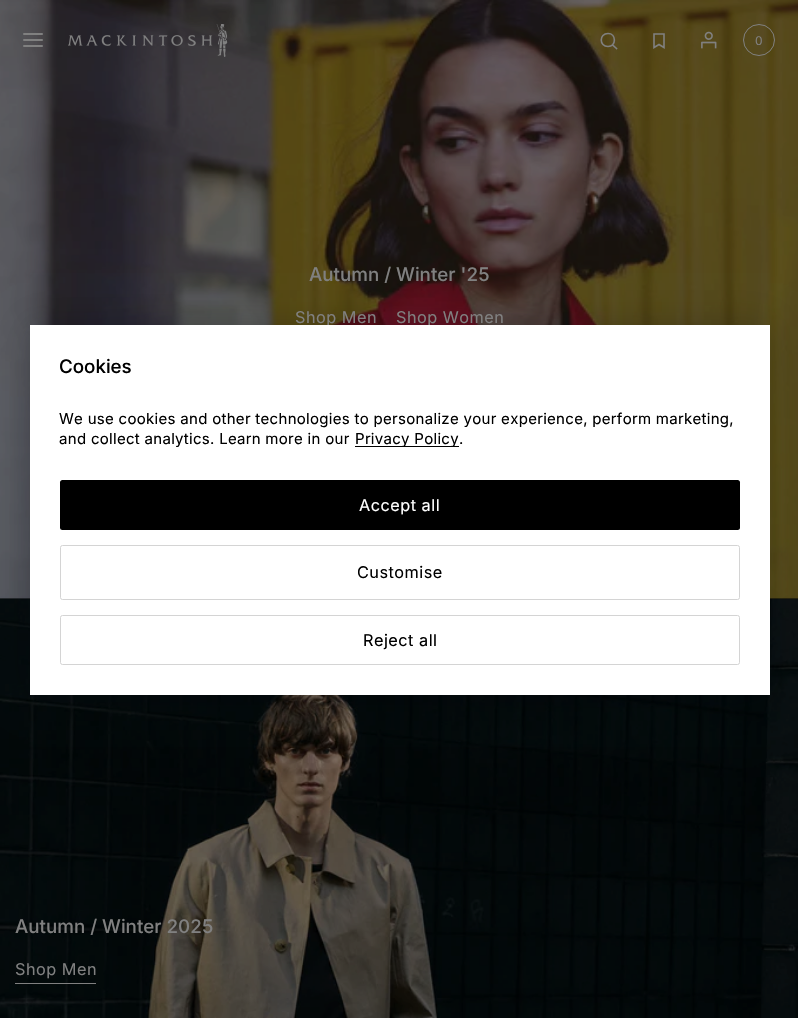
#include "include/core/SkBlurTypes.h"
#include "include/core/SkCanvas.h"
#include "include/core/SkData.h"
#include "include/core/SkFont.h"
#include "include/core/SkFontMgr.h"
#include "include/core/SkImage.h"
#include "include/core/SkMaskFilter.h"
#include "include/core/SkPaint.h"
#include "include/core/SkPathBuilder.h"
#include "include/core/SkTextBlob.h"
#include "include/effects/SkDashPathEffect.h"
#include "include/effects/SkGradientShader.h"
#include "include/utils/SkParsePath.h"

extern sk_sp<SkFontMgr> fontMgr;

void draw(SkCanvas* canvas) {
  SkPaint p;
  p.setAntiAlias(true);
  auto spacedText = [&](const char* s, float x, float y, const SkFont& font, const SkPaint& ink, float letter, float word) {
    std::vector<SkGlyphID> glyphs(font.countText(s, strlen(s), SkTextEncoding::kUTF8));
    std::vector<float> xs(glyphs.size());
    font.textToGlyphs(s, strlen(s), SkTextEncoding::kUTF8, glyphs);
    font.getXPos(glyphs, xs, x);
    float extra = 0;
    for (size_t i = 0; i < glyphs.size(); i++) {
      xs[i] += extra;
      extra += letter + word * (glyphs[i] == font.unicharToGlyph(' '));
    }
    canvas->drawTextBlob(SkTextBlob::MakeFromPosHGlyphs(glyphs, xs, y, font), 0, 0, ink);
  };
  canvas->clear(SK_ColorBLACK);
  canvas->drawImageRect(SkImages::DeferredFromEncodedData(SkData::MakeFromFileName("images/3.png")), SkRect::MakeLTRB(0, 0, 798, 599), SkSamplingOptions());
  p.setColor(SkColorSetRGB(128, 128, 128));
  canvas->drawRoundRect(SkRect::MakeLTRB(23, 33, 43, 35), 1, 1, p);
  canvas->drawRoundRect(SkRect::MakeLTRB(23, 39, 43, 41), 1, 1, p);
  canvas->drawRoundRect(SkRect::MakeLTRB(23, 45, 43, 47), 1, 1, p);
  canvas->drawImageRect(SkImages::DeferredFromEncodedData(SkData::MakeFromFileName("images/1.png")), SkRect::MakeLTRB(68, 24, 228, 57), SkSamplingOptions());
  p.setStyle(SkPaint::kStroke_Style);
  p.setStrokeWidth(1.6f);
  p.setStrokeCap(SkPaint::kSquare_Cap);
  p.setStrokeJoin(SkPaint::kRound_Join);
  canvas->drawPath(SkPathBuilder().moveTo(608, 46.5f).cubicTo(616.5f, 46.5f, 616.5f, 33.5f, 608, 33.5f).cubicTo(599, 33.5f, 599, 46.5f, 608, 46.5f).close().moveTo(616.5f, 48.5f).lineTo(612.5f, 45).detach(), p);
  p.setStrokeCap(SkPaint::kButt_Cap);
  p.setStrokeJoin(SkPaint::kMiter_Join);
  canvas->drawPath(SkPathBuilder().moveTo(664, 34).lineTo(654, 34).lineTo(654, 47.5f).lineTo(659, 44.5f).lineTo(664, 47.5f).close().detach(), p);
  canvas->drawImageRect(SkImages::DeferredFromEncodedData(SkData::MakeFromFileName("images/2.png")), SkRect::MakeLTRB(701, 31, 717, 49), SkSamplingOptions());
  p.setStrokeWidth(1);
  canvas->drawCircle(759, 40, 15.5f, p);
  canvas->drawImageRect(SkImages::DeferredFromEncodedData(SkData::MakeFromFileName("images/4.png")), SkRect::MakeLTRB(0, 598, 798, 1018), SkSamplingOptions());
  p.setStyle(SkPaint::kFill_Style);
  canvas->drawRect(SkRect::MakeLTRB(15, 983, 96, 984), p);
  p.setColor(SkColorSetARGB(51, 1, 11, 19));
  p.setMaskFilter(SkMaskFilter::MakeBlur(kNormal_SkBlurStyle, 17.5f));
  canvas->drawRect(SkRect::MakeLTRB(30, 325, 770, 695), p);
  p.setMaskFilter(nullptr);
  SkFont font1(fontMgr->matchFamilyStyle("Inter", SkFontStyle::Normal()), 12);
  font1.setSubpixel(true);
  p.setColor(SkColorSetRGB(128, 128, 128));
  canvas->drawString("0", 755, 45, font1, p);
  SkFont font2(fontMgr->matchFamilyStyle("Inter", SkFontStyle(500, SkFontStyle::kNormal_Width, SkFontStyle::kUpright_Slant)), 18.75f);
  font2.setSubpixel(true);
  canvas->drawString("Autumn / Winter '25", 309, 281, font2, p);
  SkFont font3(fontMgr->matchFamilyStyle("Inter", SkFontStyle::Normal()), 16.25f);
  font3.setSubpixel(true);
  spacedText("Shop Men", 295, 323, font3, p, 0.5f, 0);
  spacedText("Shop Women", 396, 323, font3, p, 0.5f, 0);
  canvas->drawString("Autumn / Winter 2025", 15, 933, font2, p);
  spacedText("Shop Men", 15, 975, font3, p, 0.5f, 0);
  p.setColor(SK_ColorWHITE);
  canvas->drawRect(SkRect::MakeLTRB(30, 325, 770, 695), p);
  p.setColor(SK_ColorBLACK);
  canvas->drawString("Cookies", 59, 373, font2, p);
  SkFont font4(fontMgr->matchFamilyStyle("Inter", SkFontStyle::Normal()), 15);
  font4.setSubpixel(true);
  spacedText("We use cookies and other technologies to personalize your experience, perform marketing,", 59, 424, font4, p, 0.3f, 0);
  spacedText("and collect analytics. Learn more in our", 59, 444, font4, p, 0.3f, 0);
  canvas->drawRect(SkRect::MakeLTRB(355, 446, 459, 447), p);
  spacedText("Privacy Policy.", 355, 444, font4, p, 0.3f, 0);
  canvas->drawRoundRect(SkRect::MakeLTRB(60, 480, 740, 530), 2.5f, 2.5f, p);
  p.setColor(SK_ColorWHITE);
  spacedText("Accept all", 359, 511, font3, p, 0.5f, 0);
  p.setStyle(SkPaint::kStroke_Style);
  p.setColor(SkColorSetRGB(212, 212, 212));
  canvas->drawRoundRect(SkRect::MakeLTRB(60.5f, 545.5f, 739.5f, 599.5f), 2, 2, p);
  p.setStyle(SkPaint::kFill_Style);
  p.setColor(SK_ColorBLACK);
  spacedText("Customise", 357, 578, font3, p, 0.5f, 0);
  p.setStyle(SkPaint::kStroke_Style);
  p.setColor(SkColorSetRGB(212, 212, 212));
  canvas->drawRoundRect(SkRect::MakeLTRB(60.5f, 615.5f, 739.5f, 664.5f), 2, 2, p);
  p.setStyle(SkPaint::kFill_Style);
  p.setColor(SK_ColorBLACK);
  spacedText("Reject all", 363, 646, font3, p, 0.5f, 0);
}
